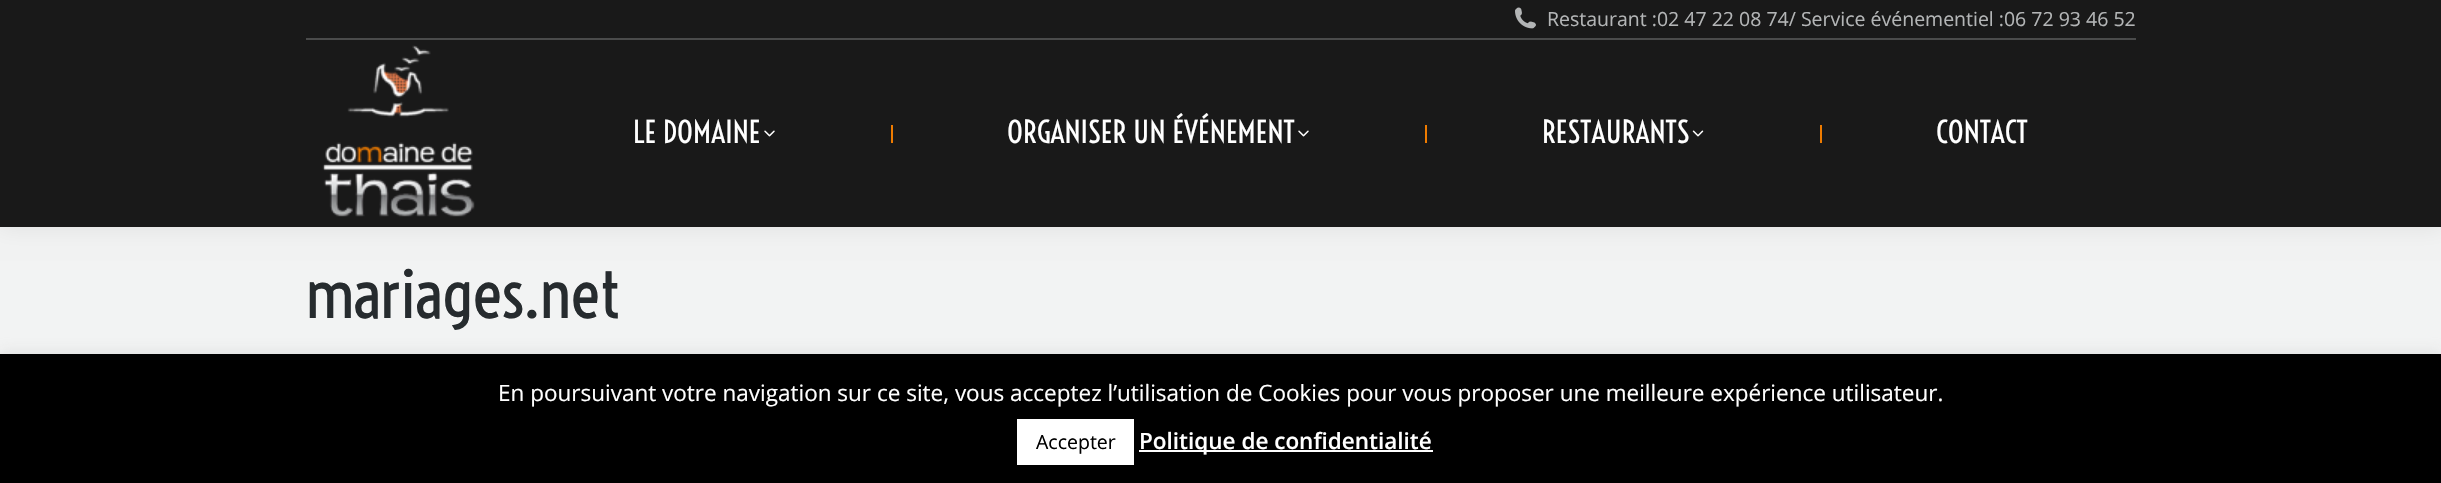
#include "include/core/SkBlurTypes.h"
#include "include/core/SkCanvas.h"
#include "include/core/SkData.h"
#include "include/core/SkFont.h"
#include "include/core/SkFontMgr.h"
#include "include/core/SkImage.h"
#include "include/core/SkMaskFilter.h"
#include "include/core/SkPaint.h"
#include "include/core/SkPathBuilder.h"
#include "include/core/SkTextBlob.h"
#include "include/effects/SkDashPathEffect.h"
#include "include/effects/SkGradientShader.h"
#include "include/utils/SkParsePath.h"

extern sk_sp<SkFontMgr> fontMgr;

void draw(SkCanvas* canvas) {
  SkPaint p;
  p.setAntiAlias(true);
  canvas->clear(SkColorSetRGB(242, 243, 243));
  p.setColor(SkColorSetARGB(18, 0, 0, 0));
  p.setMaskFilter(SkMaskFilter::MakeBlur(kNormal_SkBlurStyle, 11));
  canvas->drawRect(SkRect::MakeLTRB(-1, -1, 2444, 228), p);
  p.setMaskFilter(nullptr);
  p.setColor(SkColorSetRGB(25, 25, 25));
  canvas->drawRect(SkRect::MakeLTRB(0, 0, 2441, 227), p);
  canvas->drawImageRect(SkImages::DeferredFromEncodedData(SkData::MakeFromFileName("images/1.png")), SkRect::MakeLTRB(1515, 7, 1536, 29), SkSamplingOptions());
  p.setColor(SkColorSetRGB(74, 75, 75));
  canvas->drawRect(SkRect::MakeLTRB(306, 38, 2136, 40), p);
  canvas->drawImageRect(SkImages::DeferredFromEncodedData(SkData::MakeFromFileName("images/2.png")), SkRect::MakeLTRB(322, 45, 475, 217), SkSamplingOptions());
  canvas->drawImageRect(SkImages::DeferredFromEncodedData(SkData::MakeFromFileName("images/3.png")), SkRect::MakeLTRB(764, 130, 775, 137), SkSamplingOptions());
  p.setColor(SkColorSetRGB(238, 123, 0));
  canvas->drawRect(SkRect::MakeLTRB(891, 125, 893, 143), p);
  canvas->drawImageRect(SkImages::DeferredFromEncodedData(SkData::MakeFromFileName("images/3.png")), SkRect::MakeLTRB(1298, 130, 1309, 137), SkSamplingOptions());
  canvas->drawRect(SkRect::MakeLTRB(1425, 125, 1427, 143), p);
  canvas->drawImageRect(SkImages::DeferredFromEncodedData(SkData::MakeFromFileName("images/4.png")), SkRect::MakeLTRB(1692, 130, 1704, 137), SkSamplingOptions());
  canvas->drawRect(SkRect::MakeLTRB(1820, 125, 1822, 143), p);
  p.setColor(SkColorSetARGB(77, 172, 171, 171));
  p.setMaskFilter(SkMaskFilter::MakeBlur(kNormal_SkBlurStyle, 7.5f));
  canvas->drawRect(SkRect::MakeLTRB(0, 353, 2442, 482), p);
  p.setMaskFilter(nullptr);
  p.setColor(SK_ColorBLACK);
  canvas->drawRect(SkRect::MakeLTRB(0, 354, 2441, 483), p);
  p.setColor(SK_ColorWHITE);
  canvas->drawRect(SkRect::MakeLTRB(1017, 419, 1134, 465), p);
  canvas->drawRect(SkRect::MakeLTRB(1139, 450, 1433, 452), p);
  SkFont font1(fontMgr->matchFamilyStyle("Open Sans", SkFontStyle::Normal()), 19.5f);
  font1.setSubpixel(true);
  p.setColor(SkColorSetRGB(179, 181, 182));
  canvas->drawString("Restaurant :02 47 22 08 74/ Service événementiel :06 72 93 46 52", 1547, 26, font1, p);
  SkFont font2(fontMgr->matchFamilyStyle("Voltaire", SkFontStyle::Normal()), 30);
  font2.setSubpixel(true);
  p.setColor(SK_ColorWHITE);
  canvas->drawString("LE DOMAINE", 633, 143, font2, p);
  canvas->drawString("ORGANISER UN ÉVÉNEMENT", 1007, 143, font2, p);
  canvas->drawString("RESTAURANTS", 1542, 143, font2, p);
  canvas->drawString("CONTACT", 1936, 143, font2, p);
  SkFont font3(fontMgr->matchFamilyStyle("Voltaire", SkFontStyle::Normal()), 67.5f);
  font3.setSubpixel(true);
  p.setColor(SkColorSetRGB(38, 43, 46));
  canvas->drawString("mariages.net", 306, 318, font3, p);
  SkFont font4(fontMgr->matchFamilyStyle("Open Sans", SkFontStyle::Normal()), 22.5f);
  font4.setSubpixel(true);
  p.setColor(SK_ColorWHITE);
  canvas->drawString("En poursuivant votre navigation sur ce site, vous acceptez l’utilisation de Cookies pour vous proposer une meilleure expérience utilisateur.", 498, 401, font4, p);
  p.setColor(SK_ColorBLACK);
  canvas->drawString("Accepter", 1036, 449, font1, p);
  SkFont font5(fontMgr->matchFamilyStyle("Open Sans", SkFontStyle(600, SkFontStyle::kNormal_Width, SkFontStyle::kUpright_Slant)), 22.5f);
  font5.setSubpixel(true);
  p.setColor(SK_ColorWHITE);
  canvas->drawString("Politique de confidentialité", 1139, 449, font5, p);
}
